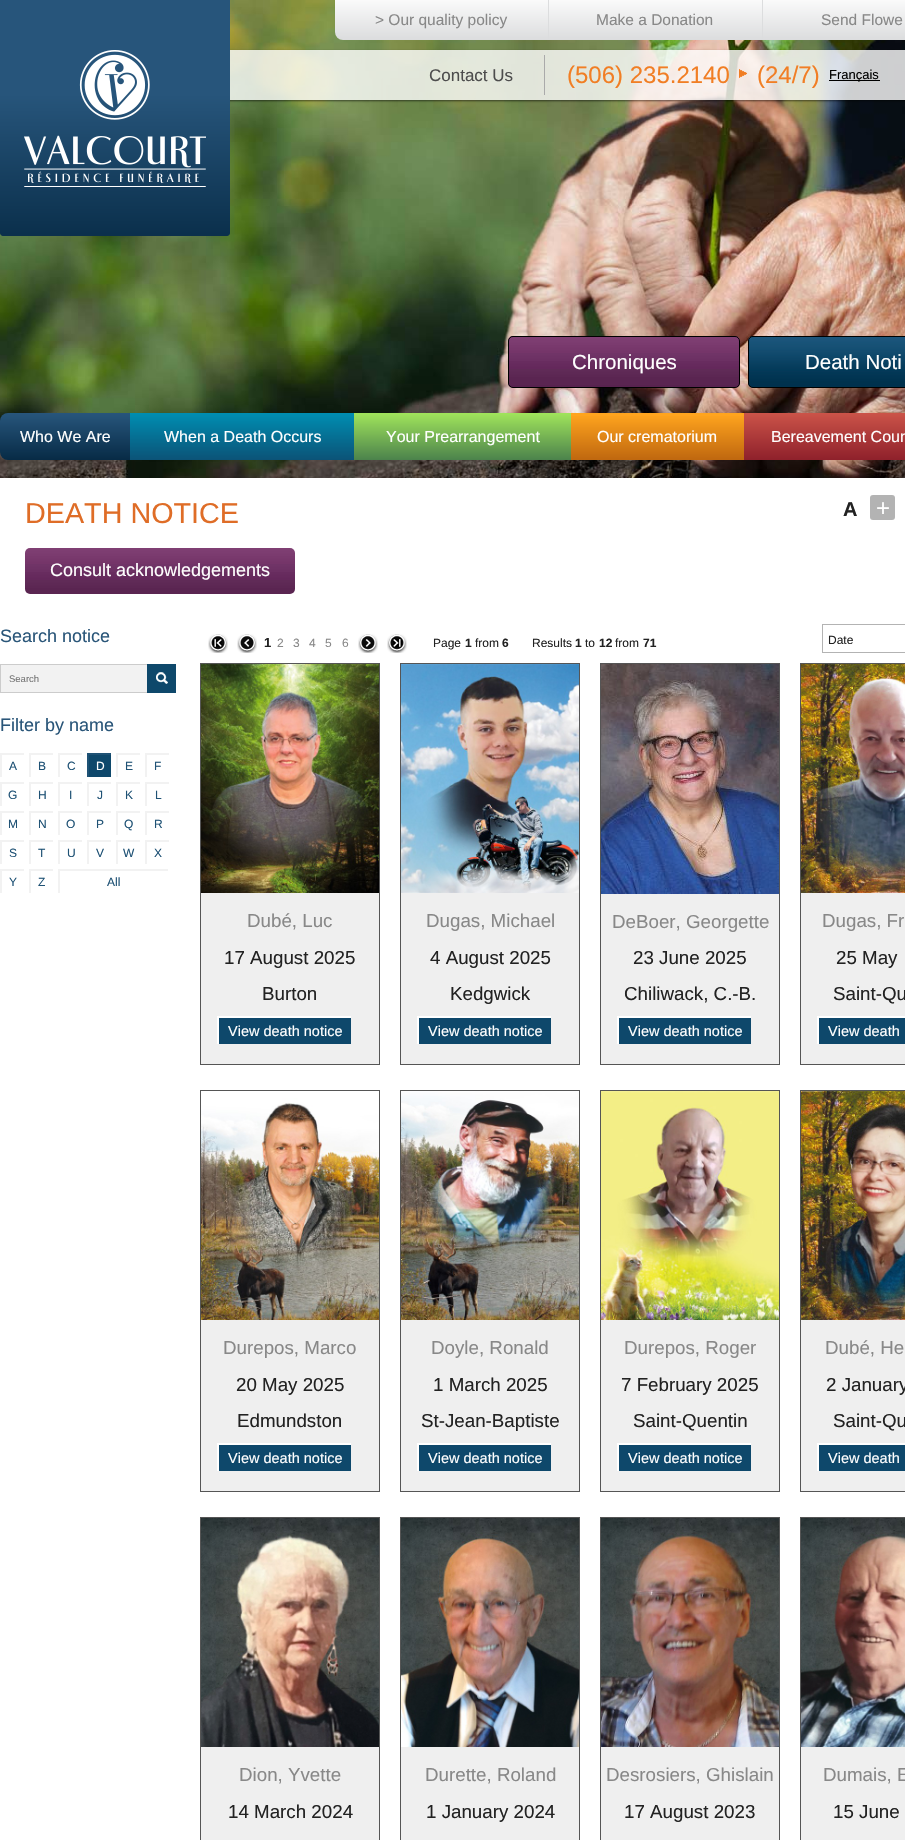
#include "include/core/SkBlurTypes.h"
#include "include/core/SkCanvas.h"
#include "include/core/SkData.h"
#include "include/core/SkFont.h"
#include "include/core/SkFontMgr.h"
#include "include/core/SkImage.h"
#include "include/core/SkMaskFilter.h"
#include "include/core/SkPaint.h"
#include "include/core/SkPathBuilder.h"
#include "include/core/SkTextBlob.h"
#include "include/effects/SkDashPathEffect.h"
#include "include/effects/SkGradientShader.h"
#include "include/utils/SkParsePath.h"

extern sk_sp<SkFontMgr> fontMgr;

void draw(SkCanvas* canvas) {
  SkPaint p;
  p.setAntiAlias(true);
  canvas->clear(SK_ColorWHITE);
  canvas->drawImageRect(SkImages::DeferredFromEncodedData(SkData::MakeFromFileName("images/1.png")), SkRect::MakeLTRB(0, 0, 905, 478), SkSamplingOptions());
  canvas->drawImageRect(SkImages::DeferredFromEncodedData(SkData::MakeFromFileName("images/2.png")), SkRect::MakeLTRB(335, 0, 905, 40), SkSamplingOptions());
  p.setColor(SkColorSetRGB(220, 221, 222));
  canvas->drawRect(SkRect::MakeLTRB(548, 0, 549, 40), p);
  canvas->drawRect(SkRect::MakeLTRB(762, 0, 763, 40), p);
  canvas->save();
  canvas->clipPath(SkPathBuilder(SkPathFillType::kEvenOdd).moveTo(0, 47).lineTo(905, 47).lineTo(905, 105).lineTo(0, 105).close().moveTo(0, 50).lineTo(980, 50).lineTo(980, 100).lineTo(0, 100).close().detach(), true);
  p.setColor(SkColorSetARGB(140, 0, 0, 0));
  p.setMaskFilter(SkMaskFilter::MakeBlur(kNormal_SkBlurStyle, 1));
  canvas->drawRect(SkRect::MakeLTRB(0, 51, 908, 101), p);
  p.setMaskFilter(nullptr);
  canvas->restore();
  p.setColor(SkColorSetARGB(204, 255, 255, 255));
  canvas->drawRect(SkRect::MakeLTRB(230, 50, 905, 100), p);
  p.setColor(SkColorSetRGB(170, 170, 170));
  canvas->drawRect(SkRect::MakeLTRB(544, 55, 545, 95), p);
  canvas->drawImageRect(SkImages::DeferredFromEncodedData(SkData::MakeFromFileName("images/3.png")), SkRect::MakeLTRB(739, 69, 747, 78), SkSamplingOptions());
  p.setColor(SK_ColorBLACK);
  canvas->drawRect(SkRect::MakeLTRB(829, 80, 880, 81), p);
  canvas->drawImageRect(SkImages::DeferredFromEncodedData(SkData::MakeFromFileName("images/4.png")), SkRect::MakeLTRB(0, 0, 230, 236), SkSamplingOptions());
  canvas->drawImageRect(SkImages::DeferredFromEncodedData(SkData::MakeFromFileName("images/5.png")), SkRect::MakeLTRB(508, 336, 740, 388), SkSamplingOptions());
  p.setStyle(SkPaint::kStroke_Style);
  p.setStrokeWidth(1);
  canvas->drawRoundRect(SkRect::MakeLTRB(508.5f, 336.5f, 739.5f, 387.5f), 4.5f, 4.5f, p);
  canvas->drawImageRect(SkImages::DeferredFromEncodedData(SkData::MakeFromFileName("images/6.png")), SkRect::MakeLTRB(748, 336, 905, 388), SkSamplingOptions());
  canvas->drawRoundRect(SkRect::MakeLTRB(748.5f, 336.5f, 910.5f, 387.5f), 4.5f, 4.5f, p);
  canvas->drawImageRect(SkImages::DeferredFromEncodedData(SkData::MakeFromFileName("images/7.png")), SkRect::MakeLTRB(0, 413, 130, 460), SkSamplingOptions());
  canvas->drawImageRect(SkImages::DeferredFromEncodedData(SkData::MakeFromFileName("images/8.png")), SkRect::MakeLTRB(130, 413, 354, 460), SkSamplingOptions());
  canvas->drawImageRect(SkImages::DeferredFromEncodedData(SkData::MakeFromFileName("images/9.png")), SkRect::MakeLTRB(354, 413, 571, 460), SkSamplingOptions());
  canvas->drawImageRect(SkImages::DeferredFromEncodedData(SkData::MakeFromFileName("images/10.png")), SkRect::MakeLTRB(571, 413, 744, 460), SkSamplingOptions());
  canvas->drawImageRect(SkImages::DeferredFromEncodedData(SkData::MakeFromFileName("images/11.png")), SkRect::MakeLTRB(744, 413, 905, 460), SkSamplingOptions());
  p.setStyle(SkPaint::kFill_Style);
  p.setColor(SkColorSetRGB(179, 179, 179));
  canvas->drawRoundRect(SkRect::MakeLTRB(870, 495, 895, 520), 3, 3, p);
  canvas->drawImageRect(SkImages::DeferredFromEncodedData(SkData::MakeFromFileName("images/12.png")), SkRect::MakeLTRB(25, 548, 295, 594), SkSamplingOptions());
  p.setColor(SkColorSetRGB(242, 242, 242));
  canvas->drawRect(SkRect::MakeLTRB(1, 665, 147, 692), p);
  p.setStyle(SkPaint::kStroke_Style);
  p.setColor(SkColorSetRGB(204, 204, 204));
  canvas->drawRect(SkRect::MakeLTRB(0.5f, 664.5f, 173.5f, 692.5f), p);
  p.setStyle(SkPaint::kFill_Style);
  p.setColor(SkColorSetRGB(14, 72, 107));
  canvas->drawRect(SkRect::MakeLTRB(147, 664, 176, 693), p);
  canvas->drawImageRect(SkImages::DeferredFromEncodedData(SkData::MakeFromFileName("images/13.png")), SkRect::MakeLTRB(156, 672, 168, 684), SkSamplingOptions());
  p.setColor(SkColorSetRGB(242, 242, 242));
  canvas->drawRect(SkRect::MakeLTRB(0, 753, 24, 755), p);
  canvas->drawRect(SkRect::MakeLTRB(0, 753, 2, 777), p);
  canvas->drawRect(SkRect::MakeLTRB(29, 753, 53, 755), p);
  canvas->drawRect(SkRect::MakeLTRB(29, 753, 31, 777), p);
  canvas->drawRect(SkRect::MakeLTRB(58, 753, 82, 755), p);
  canvas->drawRect(SkRect::MakeLTRB(58, 753, 60, 777), p);
  p.setColor(SkColorSetRGB(14, 72, 107));
  canvas->drawRect(SkRect::MakeLTRB(89, 755, 111, 777), p);
  p.setColor(SkColorSetRGB(31, 82, 117));
  canvas->drawRect(SkRect::MakeLTRB(87, 753, 111, 755), p);
  canvas->drawRect(SkRect::MakeLTRB(87, 753, 89, 777), p);
  p.setColor(SkColorSetRGB(242, 242, 242));
  canvas->drawRect(SkRect::MakeLTRB(116, 753, 140, 755), p);
  canvas->drawRect(SkRect::MakeLTRB(116, 753, 118, 777), p);
  canvas->drawRect(SkRect::MakeLTRB(145, 753, 169, 755), p);
  canvas->drawRect(SkRect::MakeLTRB(145, 753, 147, 777), p);
  canvas->drawRect(SkRect::MakeLTRB(0, 782, 24, 784), p);
  canvas->drawRect(SkRect::MakeLTRB(0, 782, 2, 806), p);
  canvas->drawRect(SkRect::MakeLTRB(29, 782, 53, 784), p);
  canvas->drawRect(SkRect::MakeLTRB(29, 782, 31, 806), p);
  canvas->drawRect(SkRect::MakeLTRB(58, 782, 82, 784), p);
  canvas->drawRect(SkRect::MakeLTRB(58, 782, 60, 806), p);
  canvas->drawRect(SkRect::MakeLTRB(87, 782, 111, 784), p);
  canvas->drawRect(SkRect::MakeLTRB(87, 782, 89, 806), p);
  canvas->drawRect(SkRect::MakeLTRB(116, 782, 140, 784), p);
  canvas->drawRect(SkRect::MakeLTRB(116, 782, 118, 806), p);
  canvas->drawRect(SkRect::MakeLTRB(145, 782, 169, 784), p);
  canvas->drawRect(SkRect::MakeLTRB(145, 782, 147, 806), p);
  canvas->drawRect(SkRect::MakeLTRB(0, 811, 24, 813), p);
  canvas->drawRect(SkRect::MakeLTRB(0, 811, 2, 835), p);
  canvas->drawRect(SkRect::MakeLTRB(29, 811, 53, 813), p);
  canvas->drawRect(SkRect::MakeLTRB(29, 811, 31, 835), p);
  canvas->drawRect(SkRect::MakeLTRB(58, 811, 82, 813), p);
  canvas->drawRect(SkRect::MakeLTRB(58, 811, 60, 835), p);
  canvas->drawRect(SkRect::MakeLTRB(87, 811, 111, 813), p);
  canvas->drawRect(SkRect::MakeLTRB(87, 811, 89, 835), p);
  canvas->drawRect(SkRect::MakeLTRB(116, 811, 140, 813), p);
  canvas->drawRect(SkRect::MakeLTRB(116, 811, 118, 835), p);
  canvas->drawRect(SkRect::MakeLTRB(145, 811, 169, 813), p);
  canvas->drawRect(SkRect::MakeLTRB(145, 811, 147, 835), p);
  canvas->drawRect(SkRect::MakeLTRB(0, 840, 24, 842), p);
  canvas->drawRect(SkRect::MakeLTRB(0, 840, 2, 864), p);
  canvas->drawRect(SkRect::MakeLTRB(29, 840, 53, 842), p);
  canvas->drawRect(SkRect::MakeLTRB(29, 840, 31, 864), p);
  canvas->drawRect(SkRect::MakeLTRB(58, 840, 82, 842), p);
  canvas->drawRect(SkRect::MakeLTRB(58, 840, 60, 864), p);
  canvas->drawRect(SkRect::MakeLTRB(87, 840, 111, 842), p);
  canvas->drawRect(SkRect::MakeLTRB(87, 840, 89, 864), p);
  canvas->drawRect(SkRect::MakeLTRB(116, 840, 140, 842), p);
  canvas->drawRect(SkRect::MakeLTRB(116, 840, 118, 864), p);
  canvas->drawRect(SkRect::MakeLTRB(145, 840, 169, 842), p);
  canvas->drawRect(SkRect::MakeLTRB(145, 840, 147, 864), p);
  canvas->drawRect(SkRect::MakeLTRB(0, 869, 24, 871), p);
  canvas->drawRect(SkRect::MakeLTRB(0, 869, 2, 893), p);
  canvas->drawRect(SkRect::MakeLTRB(29, 869, 53, 871), p);
  canvas->drawRect(SkRect::MakeLTRB(29, 869, 31, 893), p);
  canvas->drawRect(SkRect::MakeLTRB(58, 869, 168, 871), p);
  canvas->drawRect(SkRect::MakeLTRB(58, 869, 60, 893), p);
  canvas->drawImageRect(SkImages::DeferredFromEncodedData(SkData::MakeFromFileName("images/14.png")), SkRect::MakeLTRB(208, 634, 228, 653), SkSamplingOptions());
  canvas->drawImageRect(SkImages::DeferredFromEncodedData(SkData::MakeFromFileName("images/15.png")), SkRect::MakeLTRB(237, 634, 257, 653), SkSamplingOptions());
  canvas->drawImageRect(SkImages::DeferredFromEncodedData(SkData::MakeFromFileName("images/16.png")), SkRect::MakeLTRB(358, 634, 378, 653), SkSamplingOptions());
  canvas->drawImageRect(SkImages::DeferredFromEncodedData(SkData::MakeFromFileName("images/17.png")), SkRect::MakeLTRB(387, 634, 407, 653), SkSamplingOptions());
  p.setStyle(SkPaint::kStroke_Style);
  p.setColor(SkColorSetRGB(179, 179, 179));
  canvas->drawRect(SkRect::MakeLTRB(822.5f, 624.5f, 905.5f, 652.5f), p);
  p.setStyle(SkPaint::kFill_Style);
  p.setColor(SkColorSetRGB(239, 239, 239));
  canvas->drawRect(SkRect::MakeLTRB(201, 893, 379, 1064), p);
  p.setStyle(SkPaint::kStroke_Style);
  p.setColor(SkColorSetRGB(85, 85, 85));
  canvas->drawRect(SkRect::MakeLTRB(200.5f, 663.5f, 379.5f, 1064.5f), p);
  canvas->drawImageRect(SkImages::DeferredFromEncodedData(SkData::MakeFromFileName("images/18.png")), SkRect::MakeLTRB(201, 664, 379, 893), SkSamplingOptions());
  p.setStyle(SkPaint::kFill_Style);
  p.setColor(SkColorSetRGB(14, 72, 107));
  canvas->drawRect(SkRect::MakeLTRB(219, 1018, 351, 1044), p);
  p.setColor(SK_ColorWHITE);
  canvas->drawRect(SkRect::MakeLTRB(217, 1016, 351, 1018), p);
  canvas->drawRect(SkRect::MakeLTRB(217, 1016, 219, 1044), p);
  p.setColor(SkColorSetRGB(239, 239, 239));
  canvas->drawRect(SkRect::MakeLTRB(401, 893, 579, 1064), p);
  p.setStyle(SkPaint::kStroke_Style);
  p.setColor(SkColorSetRGB(85, 85, 85));
  canvas->drawRect(SkRect::MakeLTRB(400.5f, 663.5f, 579.5f, 1064.5f), p);
  canvas->drawImageRect(SkImages::DeferredFromEncodedData(SkData::MakeFromFileName("images/19.png")), SkRect::MakeLTRB(401, 664, 579, 893), SkSamplingOptions());
  p.setStyle(SkPaint::kFill_Style);
  p.setColor(SkColorSetRGB(14, 72, 107));
  canvas->drawRect(SkRect::MakeLTRB(419, 1018, 551, 1044), p);
  p.setColor(SK_ColorWHITE);
  canvas->drawRect(SkRect::MakeLTRB(417, 1016, 551, 1018), p);
  canvas->drawRect(SkRect::MakeLTRB(417, 1016, 419, 1044), p);
  p.setColor(SkColorSetRGB(239, 239, 239));
  canvas->drawRect(SkRect::MakeLTRB(601, 894, 779, 1064), p);
  p.setStyle(SkPaint::kStroke_Style);
  p.setColor(SkColorSetRGB(85, 85, 85));
  canvas->drawRect(SkRect::MakeLTRB(600.5f, 663.5f, 779.5f, 1064.5f), p);
  canvas->drawImageRect(SkImages::DeferredFromEncodedData(SkData::MakeFromFileName("images/20.png")), SkRect::MakeLTRB(601, 664, 779, 894), SkSamplingOptions());
  p.setStyle(SkPaint::kFill_Style);
  p.setColor(SkColorSetRGB(14, 72, 107));
  canvas->drawRect(SkRect::MakeLTRB(619, 1018, 751, 1044), p);
  p.setColor(SK_ColorWHITE);
  canvas->drawRect(SkRect::MakeLTRB(617, 1016, 751, 1018), p);
  canvas->drawRect(SkRect::MakeLTRB(617, 1016, 619, 1044), p);
  p.setColor(SkColorSetRGB(239, 239, 239));
  canvas->drawRect(SkRect::MakeLTRB(801, 893, 905, 1064), p);
  p.setStyle(SkPaint::kStroke_Style);
  p.setColor(SkColorSetRGB(85, 85, 85));
  canvas->drawRect(SkRect::MakeLTRB(800.5f, 663.5f, 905.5f, 1064.5f), p);
  canvas->drawImageRect(SkImages::DeferredFromEncodedData(SkData::MakeFromFileName("images/21.png")), SkRect::MakeLTRB(801, 664, 905, 893), SkSamplingOptions());
  p.setStyle(SkPaint::kFill_Style);
  p.setColor(SkColorSetRGB(14, 72, 107));
  canvas->drawRect(SkRect::MakeLTRB(819, 1018, 905, 1044), p);
  p.setColor(SK_ColorWHITE);
  canvas->drawRect(SkRect::MakeLTRB(817, 1016, 905, 1018), p);
  canvas->drawRect(SkRect::MakeLTRB(817, 1016, 819, 1044), p);
  p.setColor(SkColorSetRGB(239, 239, 239));
  canvas->drawRect(SkRect::MakeLTRB(201, 1320, 379, 1491), p);
  p.setStyle(SkPaint::kStroke_Style);
  p.setColor(SkColorSetRGB(85, 85, 85));
  canvas->drawRect(SkRect::MakeLTRB(200.5f, 1090.5f, 379.5f, 1491.5f), p);
  canvas->drawImageRect(SkImages::DeferredFromEncodedData(SkData::MakeFromFileName("images/22.png")), SkRect::MakeLTRB(201, 1091, 379, 1320), SkSamplingOptions());
  p.setStyle(SkPaint::kFill_Style);
  p.setColor(SkColorSetRGB(14, 72, 107));
  canvas->drawRect(SkRect::MakeLTRB(219, 1445, 351, 1471), p);
  p.setColor(SK_ColorWHITE);
  canvas->drawRect(SkRect::MakeLTRB(217, 1443, 351, 1445), p);
  canvas->drawRect(SkRect::MakeLTRB(217, 1443, 219, 1471), p);
  p.setColor(SkColorSetRGB(239, 239, 239));
  canvas->drawRect(SkRect::MakeLTRB(401, 1320, 579, 1491), p);
  p.setStyle(SkPaint::kStroke_Style);
  p.setColor(SkColorSetRGB(85, 85, 85));
  canvas->drawRect(SkRect::MakeLTRB(400.5f, 1090.5f, 579.5f, 1491.5f), p);
  canvas->drawImageRect(SkImages::DeferredFromEncodedData(SkData::MakeFromFileName("images/23.png")), SkRect::MakeLTRB(401, 1091, 579, 1320), SkSamplingOptions());
  p.setStyle(SkPaint::kFill_Style);
  p.setColor(SkColorSetRGB(14, 72, 107));
  canvas->drawRect(SkRect::MakeLTRB(419, 1445, 551, 1471), p);
  p.setColor(SK_ColorWHITE);
  canvas->drawRect(SkRect::MakeLTRB(417, 1443, 551, 1445), p);
  canvas->drawRect(SkRect::MakeLTRB(417, 1443, 419, 1471), p);
  p.setColor(SkColorSetRGB(239, 239, 239));
  canvas->drawRect(SkRect::MakeLTRB(601, 1320, 779, 1491), p);
  p.setStyle(SkPaint::kStroke_Style);
  p.setColor(SkColorSetRGB(85, 85, 85));
  canvas->drawRect(SkRect::MakeLTRB(600.5f, 1090.5f, 779.5f, 1491.5f), p);
  canvas->drawImageRect(SkImages::DeferredFromEncodedData(SkData::MakeFromFileName("images/24.png")), SkRect::MakeLTRB(601, 1091, 779, 1320), SkSamplingOptions());
  p.setStyle(SkPaint::kFill_Style);
  p.setColor(SkColorSetRGB(14, 72, 107));
  canvas->drawRect(SkRect::MakeLTRB(619, 1445, 751, 1471), p);
  p.setColor(SK_ColorWHITE);
  canvas->drawRect(SkRect::MakeLTRB(617, 1443, 751, 1445), p);
  canvas->drawRect(SkRect::MakeLTRB(617, 1443, 619, 1471), p);
  p.setColor(SkColorSetRGB(239, 239, 239));
  canvas->drawRect(SkRect::MakeLTRB(801, 1320, 905, 1491), p);
  p.setStyle(SkPaint::kStroke_Style);
  p.setColor(SkColorSetRGB(85, 85, 85));
  canvas->drawRect(SkRect::MakeLTRB(800.5f, 1090.5f, 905.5f, 1491.5f), p);
  canvas->drawImageRect(SkImages::DeferredFromEncodedData(SkData::MakeFromFileName("images/25.png")), SkRect::MakeLTRB(801, 1091, 905, 1320), SkSamplingOptions());
  p.setStyle(SkPaint::kFill_Style);
  p.setColor(SkColorSetRGB(14, 72, 107));
  canvas->drawRect(SkRect::MakeLTRB(819, 1445, 905, 1471), p);
  p.setColor(SK_ColorWHITE);
  canvas->drawRect(SkRect::MakeLTRB(817, 1443, 905, 1445), p);
  canvas->drawRect(SkRect::MakeLTRB(817, 1443, 819, 1471), p);
  p.setColor(SkColorSetRGB(239, 239, 239));
  canvas->drawRect(SkRect::MakeLTRB(201, 1747, 379, 1840), p);
  p.setStyle(SkPaint::kStroke_Style);
  p.setColor(SkColorSetRGB(85, 85, 85));
  canvas->drawRect(SkRect::MakeLTRB(200.5f, 1517.5f, 379.5f, 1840.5f), p);
  canvas->drawImageRect(SkImages::DeferredFromEncodedData(SkData::MakeFromFileName("images/26.png")), SkRect::MakeLTRB(201, 1518, 379, 1747), SkSamplingOptions());
  p.setStyle(SkPaint::kFill_Style);
  p.setColor(SkColorSetRGB(239, 239, 239));
  canvas->drawRect(SkRect::MakeLTRB(401, 1747, 579, 1840), p);
  p.setStyle(SkPaint::kStroke_Style);
  p.setColor(SkColorSetRGB(85, 85, 85));
  canvas->drawRect(SkRect::MakeLTRB(400.5f, 1517.5f, 579.5f, 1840.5f), p);
  canvas->drawImageRect(SkImages::DeferredFromEncodedData(SkData::MakeFromFileName("images/27.png")), SkRect::MakeLTRB(401, 1518, 579, 1747), SkSamplingOptions());
  p.setStyle(SkPaint::kFill_Style);
  p.setColor(SkColorSetRGB(239, 239, 239));
  canvas->drawRect(SkRect::MakeLTRB(601, 1747, 779, 1840), p);
  p.setStyle(SkPaint::kStroke_Style);
  p.setColor(SkColorSetRGB(85, 85, 85));
  canvas->drawRect(SkRect::MakeLTRB(600.5f, 1517.5f, 779.5f, 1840.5f), p);
  canvas->drawImageRect(SkImages::DeferredFromEncodedData(SkData::MakeFromFileName("images/28.png")), SkRect::MakeLTRB(601, 1518, 779, 1747), SkSamplingOptions());
  p.setStyle(SkPaint::kFill_Style);
  p.setColor(SkColorSetRGB(239, 239, 239));
  canvas->drawRect(SkRect::MakeLTRB(801, 1747, 905, 1840), p);
  p.setStyle(SkPaint::kStroke_Style);
  p.setColor(SkColorSetRGB(85, 85, 85));
  canvas->drawRect(SkRect::MakeLTRB(800.5f, 1517.5f, 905.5f, 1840.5f), p);
  canvas->drawImageRect(SkImages::DeferredFromEncodedData(SkData::MakeFromFileName("images/29.png")), SkRect::MakeLTRB(801, 1518, 905, 1747), SkSamplingOptions());
  SkFont font1(fontMgr->matchFamilyStyle("Liberation Sans", SkFontStyle::Normal()), 15.5f);
  font1.setSubpixel(true);
  p.setStyle(SkPaint::kFill_Style);
  p.setColor(SkColorSetRGB(136, 136, 136));
  canvas->drawString("> Our quality policy", 375, 25, font1, p);
  canvas->drawString("Make a Donation", 596, 25, font1, p);
  canvas->drawString("Send Flowe", 821, 25, font1, p);
  SkFont font2(fontMgr->matchFamilyStyle("Liberation Sans", SkFontStyle::Normal()), 17);
  font2.setSubpixel(true);
  p.setColor(SkColorSetRGB(77, 77, 77));
  canvas->drawString("Contact Us", 429, 81, font2, p);
  SkFont font3(fontMgr->matchFamilyStyle("Liberation Sans", SkFontStyle::Normal()), 24);
  font3.setSubpixel(true);
  p.setColor(SkColorSetRGB(241, 126, 36));
  canvas->drawString("(506) 235.2140", 567, 83, font3, p);
  canvas->drawString("(24/7)", 757, 83, font3, p);
  SkFont font4(fontMgr->matchFamilyStyle("Liberation Sans", SkFontStyle::Normal()), 13);
  font4.setSubpixel(true);
  p.setColor(SK_ColorBLACK);
  canvas->drawString("Français", 829, 79, font4, p);
  SkFont font5(fontMgr->matchFamilyStyle("Liberation Sans", SkFontStyle::Normal()), 20.5f);
  font5.setSubpixel(true);
  p.setColor(SK_ColorWHITE);
  canvas->drawString("Chroniques", 572, 369, font5, p);
  canvas->drawString("Death Noti", 805, 369, font5, p);
  SkFont font6(fontMgr->matchFamilyStyle("Liberation Sans", SkFontStyle::Normal()), 16);
  font6.setSubpixel(true);
  canvas->drawString("Who We Are", 20, 442, font6, p);
  canvas->drawString("When a Death Occurs", 164, 442, font6, p);
  canvas->drawString("Your Prearrangement", 386, 442, font6, p);
  canvas->drawString("Our crematorium", 597, 442, font6, p);
  canvas->drawString("Bereavement Coun", 771, 442, font6, p);
  SkFont font7(fontMgr->matchFamilyStyle("Liberation Sans", SkFontStyle::Normal()), 28.75f);
  font7.setSubpixel(true);
  p.setColor(SkColorSetRGB(223, 109, 39));
  canvas->drawString("DEATH NOTICE", 25, 523, font7, p);
  SkFont font8(fontMgr->matchFamilyStyle("Liberation Sans", SkFontStyle::Bold()), 20);
  font8.setSubpixel(true);
  p.setColor(SkColorSetRGB(34, 34, 34));
  canvas->drawString("A", 843, 516, font8, p);
  p.setColor(SK_ColorWHITE);
  canvas->drawString("+", 876, 516, font3, p);
  SkFont font9(fontMgr->matchFamilyStyle("Liberation Sans", SkFontStyle::Normal()), 18);
  font9.setSubpixel(true);
  canvas->drawString("Consult acknowledgements", 50, 576, font9, p);
  p.setColor(SkColorSetRGB(42, 86, 121));
  canvas->drawString("Search notice", 0, 642, font9, p);
  SkFont font10(fontMgr->matchFamilyStyle("Liberation Sans", SkFontStyle::Normal()), 9.5f);
  font10.setSubpixel(true);
  p.setColor(SkColorSetRGB(117, 117, 117));
  canvas->drawString("Search", 9, 682, font10, p);
  p.setColor(SkColorSetRGB(42, 86, 121));
  canvas->drawString("Filter by name", 0, 731, font9, p);
  SkFont font11(fontMgr->matchFamilyStyle("Liberation Sans", SkFontStyle::Normal()), 12);
  font11.setSubpixel(true);
  p.setColor(SkColorSetRGB(31, 82, 117));
  canvas->drawString("A", 9, 770, font11, p);
  canvas->drawString("B", 38, 770, font11, p);
  canvas->drawString("C", 67, 770, font11, p);
  p.setColor(SK_ColorWHITE);
  canvas->drawString("D", 96, 770, font11, p);
  p.setColor(SkColorSetRGB(31, 82, 117));
  canvas->drawString("E", 125, 770, font11, p);
  canvas->drawString("F", 154, 770, font11, p);
  canvas->drawString("G", 8, 799, font11, p);
  canvas->drawString("H", 38, 799, font11, p);
  canvas->drawString("I", 69, 799, font11, p);
  canvas->drawString("J", 97, 799, font11, p);
  canvas->drawString("K", 125, 799, font11, p);
  canvas->drawString("L", 155, 799, font11, p);
  canvas->drawString("M", 8, 828, font11, p);
  canvas->drawString("N", 38, 828, font11, p);
  canvas->drawString("O", 66, 828, font11, p);
  canvas->drawString("P", 96, 828, font11, p);
  canvas->drawString("Q", 124, 828, font11, p);
  canvas->drawString("R", 154, 828, font11, p);
  canvas->drawString("S", 9, 857, font11, p);
  canvas->drawString("T", 38, 857, font11, p);
  canvas->drawString("U", 67, 857, font11, p);
  canvas->drawString("V", 96, 857, font11, p);
  canvas->drawString("W", 123, 857, font11, p);
  canvas->drawString("X", 154, 857, font11, p);
  canvas->drawString("Y", 9, 886, font11, p);
  canvas->drawString("Z", 38, 886, font11, p);
  canvas->drawString("All", 107, 886, font11, p);
  SkFont font12(fontMgr->matchFamilyStyle("Liberation Sans", SkFontStyle::Bold()), 13);
  font12.setSubpixel(true);
  p.setColor(SkColorSetRGB(34, 34, 34));
  canvas->drawString("1", 264, 647, font12, p);
  p.setColor(SkColorSetRGB(136, 136, 136));
  canvas->drawString("2", 277, 647, font11, p);
  canvas->drawString("3", 293, 647, font11, p);
  canvas->drawString("4", 309, 647, font11, p);
  canvas->drawString("5", 325, 647, font11, p);
  canvas->drawString("6", 342, 647, font11, p);
  p.setColor(SkColorSetRGB(34, 34, 34));
  canvas->drawString("Page", 433, 647, font11, p);
  SkFont font13(fontMgr->matchFamilyStyle("Liberation Sans", SkFontStyle::Bold()), 12);
  font13.setSubpixel(true);
  canvas->drawString("1", 465, 647, font13, p);
  canvas->drawString("from", 475, 647, font11, p);
  canvas->drawString("6", 502, 647, font13, p);
  canvas->drawString("Results", 532, 647, font11, p);
  canvas->drawString("1", 575, 647, font13, p);
  canvas->drawString("to", 585, 647, font11, p);
  canvas->drawString("12", 599, 647, font13, p);
  canvas->drawString("from", 615, 647, font11, p);
  canvas->drawString("71", 643, 647, font13, p);
  canvas->drawString("Date", 828, 644, font11, p);
  SkFont font14(fontMgr->matchFamilyStyle("Liberation Sans", SkFontStyle::Normal()), 18.75f);
  font14.setSubpixel(true);
  p.setColor(SkColorSetRGB(136, 136, 136));
  canvas->drawString("Dubé, Luc", 247, 927, font14, p);
  p.setColor(SkColorSetRGB(34, 34, 34));
  canvas->drawString("17 August 2025", 224, 964, font14, p);
  canvas->drawString("Burton", 262, 1000, font14, p);
  SkFont font15(fontMgr->matchFamilyStyle("Liberation Sans", SkFontStyle::Normal()), 14.5f);
  font15.setSubpixel(true);
  p.setColor(SK_ColorWHITE);
  canvas->drawString("View death notice", 228, 1036, font15, p);
  p.setColor(SkColorSetRGB(136, 136, 136));
  canvas->drawString("Dugas, Michael", 426, 927, font14, p);
  p.setColor(SkColorSetRGB(34, 34, 34));
  canvas->drawString("4 August 2025", 430, 964, font14, p);
  canvas->drawString("Kedgwick", 450, 1000, font14, p);
  p.setColor(SK_ColorWHITE);
  canvas->drawString("View death notice", 428, 1036, font15, p);
  p.setColor(SkColorSetRGB(136, 136, 136));
  canvas->drawString("DeBoer, Georgette", 612, 928, font14, p);
  p.setColor(SkColorSetRGB(34, 34, 34));
  canvas->drawString("23 June 2025", 633, 964, font14, p);
  canvas->drawString("Chiliwack, C.-B.", 624, 1000, font14, p);
  p.setColor(SK_ColorWHITE);
  canvas->drawString("View death notice", 628, 1036, font15, p);
  p.setColor(SkColorSetRGB(136, 136, 136));
  canvas->drawString("Dugas, Fr", 822, 927, font14, p);
  p.setColor(SkColorSetRGB(34, 34, 34));
  canvas->drawString("25 May", 836, 964, font14, p);
  canvas->drawString("Saint-Qu", 833, 1000, font14, p);
  p.setColor(SK_ColorWHITE);
  canvas->drawString("View death", 828, 1036, font15, p);
  p.setColor(SkColorSetRGB(136, 136, 136));
  canvas->drawString("Durepos, Marco", 223, 1354, font14, p);
  p.setColor(SkColorSetRGB(34, 34, 34));
  canvas->drawString("20 May 2025", 236, 1391, font14, p);
  canvas->drawString("Edmundston", 237, 1427, font14, p);
  p.setColor(SK_ColorWHITE);
  canvas->drawString("View death notice", 228, 1463, font15, p);
  p.setColor(SkColorSetRGB(136, 136, 136));
  canvas->drawString("Doyle, Ronald", 431, 1354, font14, p);
  p.setColor(SkColorSetRGB(34, 34, 34));
  canvas->drawString("1 March 2025", 433, 1391, font14, p);
  canvas->drawString("St-Jean-Baptiste", 421, 1427, font14, p);
  p.setColor(SK_ColorWHITE);
  canvas->drawString("View death notice", 428, 1463, font15, p);
  p.setColor(SkColorSetRGB(136, 136, 136));
  canvas->drawString("Durepos, Roger", 624, 1354, font14, p);
  p.setColor(SkColorSetRGB(34, 34, 34));
  canvas->drawString("7 February 2025", 621, 1391, font14, p);
  canvas->drawString("Saint-Quentin", 633, 1427, font14, p);
  p.setColor(SK_ColorWHITE);
  canvas->drawString("View death notice", 628, 1463, font15, p);
  p.setColor(SkColorSetRGB(136, 136, 136));
  canvas->drawString("Dubé, He", 825, 1354, font14, p);
  p.setColor(SkColorSetRGB(34, 34, 34));
  canvas->drawString("2 January", 826, 1391, font14, p);
  canvas->drawString("Saint-Qu", 833, 1427, font14, p);
  p.setColor(SK_ColorWHITE);
  canvas->drawString("View death", 828, 1463, font15, p);
  p.setColor(SkColorSetRGB(136, 136, 136));
  canvas->drawString("Dion, Yvette", 239, 1781, font14, p);
  p.setColor(SkColorSetRGB(34, 34, 34));
  canvas->drawString("14 March 2024", 228, 1818, font14, p);
  p.setColor(SkColorSetRGB(136, 136, 136));
  canvas->drawString("Durette, Roland", 425, 1781, font14, p);
  p.setColor(SkColorSetRGB(34, 34, 34));
  canvas->drawString("1 January 2024", 426, 1818, font14, p);
  p.setColor(SkColorSetRGB(136, 136, 136));
  canvas->drawString("Desrosiers, Ghislain", 606, 1781, font14, p);
  p.setColor(SkColorSetRGB(34, 34, 34));
  canvas->drawString("17 August 2023", 624, 1818, font14, p);
  p.setColor(SkColorSetRGB(136, 136, 136));
  canvas->drawString("Dumais, E", 823, 1781, font14, p);
  p.setColor(SkColorSetRGB(34, 34, 34));
  canvas->drawString("15 June", 833, 1818, font14, p);
}
